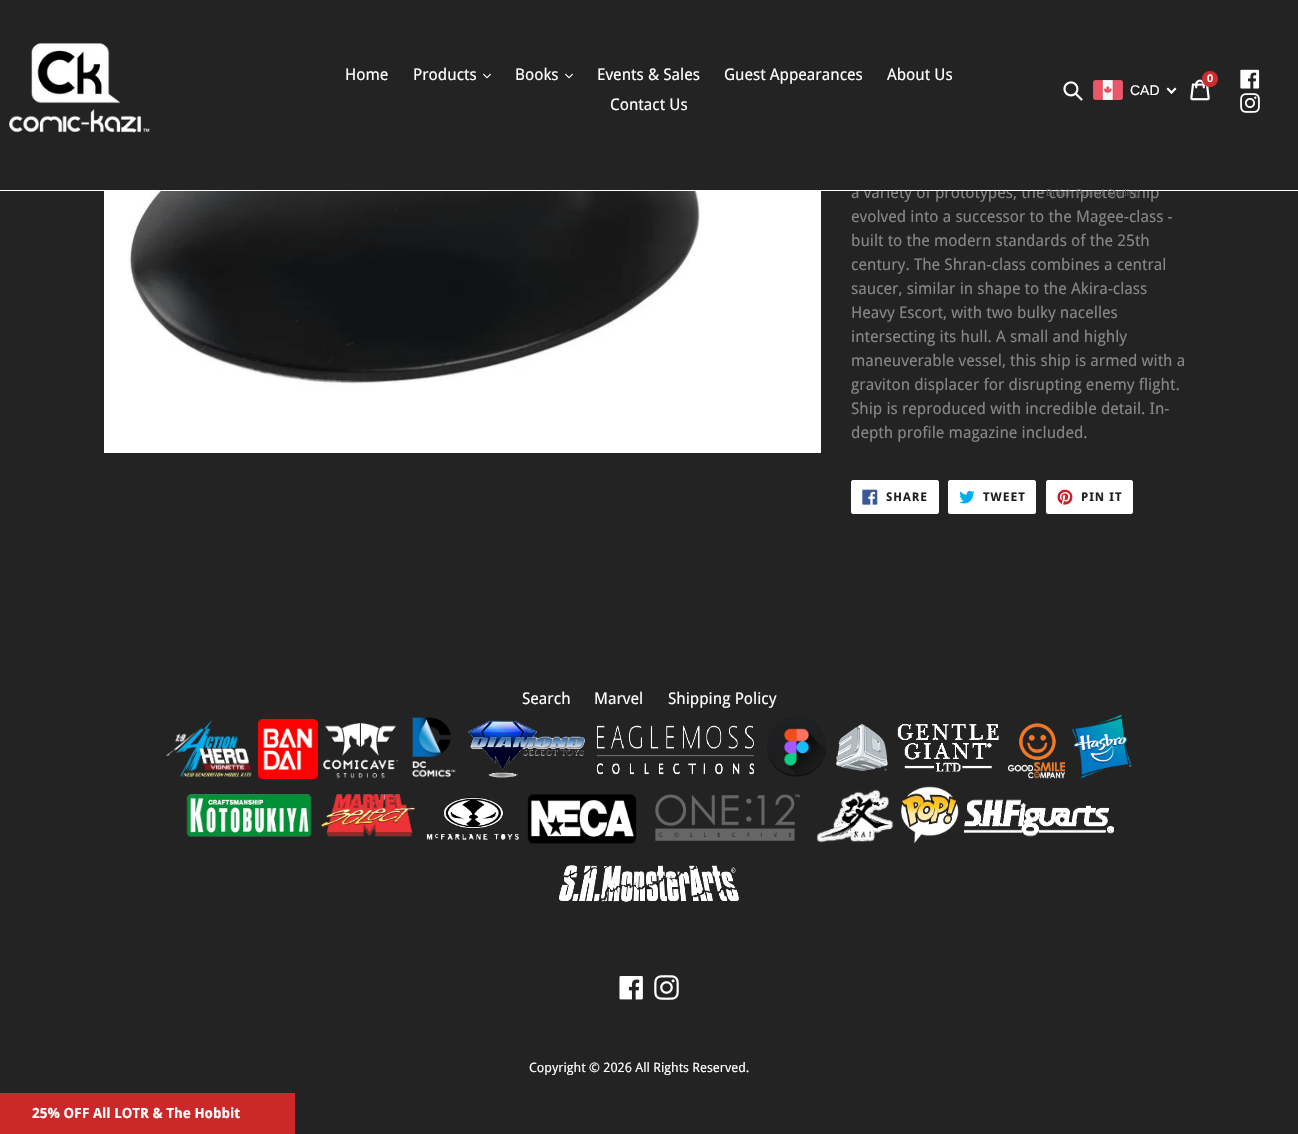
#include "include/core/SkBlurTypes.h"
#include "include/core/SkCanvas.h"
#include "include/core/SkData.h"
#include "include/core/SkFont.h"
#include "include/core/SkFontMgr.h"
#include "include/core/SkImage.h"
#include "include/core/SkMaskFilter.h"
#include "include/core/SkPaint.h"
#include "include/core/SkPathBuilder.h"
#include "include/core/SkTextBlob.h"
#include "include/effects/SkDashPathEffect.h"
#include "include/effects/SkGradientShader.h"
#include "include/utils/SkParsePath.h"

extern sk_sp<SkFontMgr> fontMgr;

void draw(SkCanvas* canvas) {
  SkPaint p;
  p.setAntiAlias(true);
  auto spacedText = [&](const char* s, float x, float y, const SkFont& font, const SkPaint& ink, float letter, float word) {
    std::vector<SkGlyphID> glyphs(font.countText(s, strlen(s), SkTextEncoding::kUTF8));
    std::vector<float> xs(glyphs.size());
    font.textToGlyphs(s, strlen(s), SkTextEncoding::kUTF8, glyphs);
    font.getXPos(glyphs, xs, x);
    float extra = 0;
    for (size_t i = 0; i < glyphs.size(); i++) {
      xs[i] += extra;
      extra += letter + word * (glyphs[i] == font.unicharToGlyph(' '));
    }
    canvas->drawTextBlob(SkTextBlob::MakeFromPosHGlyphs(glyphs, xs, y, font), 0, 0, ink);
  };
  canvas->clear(SkColorSetRGB(35, 35, 35));
  canvas->drawImageRect(SkImages::DeferredFromEncodedData(SkData::MakeFromFileName("images/1.png")), SkRect::MakeLTRB(9, 43, 150, 133), SkSamplingOptions());
  canvas->drawImageRect(SkImages::DeferredFromEncodedData(SkData::MakeFromFileName("images/2.png")), SkRect::MakeLTRB(483, 73, 491, 79), SkSamplingOptions());
  canvas->drawImageRect(SkImages::DeferredFromEncodedData(SkData::MakeFromFileName("images/2.png")), SkRect::MakeLTRB(565, 73, 573, 79), SkSamplingOptions());
  canvas->drawImageRect(SkImages::DeferredFromEncodedData(SkData::MakeFromFileName("images/3.png")), SkRect::MakeLTRB(1190, 79, 1210, 101), SkSamplingOptions());
  p.setColor(SkColorSetRGB(206, 45, 45));
  canvas->drawCircle(1210, 79, 8, p);
  canvas->drawImageRect(SkImages::DeferredFromEncodedData(SkData::MakeFromFileName("images/4.png")), SkRect::MakeLTRB(1240, 69, 1260, 89), SkSamplingOptions());
  canvas->drawImageRect(SkImages::DeferredFromEncodedData(SkData::MakeFromFileName("images/5.png")), SkRect::MakeLTRB(1240, 93, 1260, 113), SkSamplingOptions());
  canvas->drawImageRect(SkImages::DeferredFromEncodedData(SkData::MakeFromFileName("images/6.png")), SkRect::MakeLTRB(1063, 81, 1083, 101), SkSamplingOptions());
  canvas->drawImageRect(SkImages::DeferredFromEncodedData(SkData::MakeFromFileName("images/7.png")), SkRect::MakeLTRB(1093, 80, 1123, 100), SkSamplingOptions());
  p.setColor(SK_ColorWHITE);
  canvas->drawPath(SkPathBuilder().moveTo(1175, 87.5f).lineTo(1176.5f, 89).lineTo(1171.5f, 94).lineTo(1170, 92.5f).close().detach(), p);
  canvas->drawPath(SkPathBuilder().moveTo(1168, 87.5f).lineTo(1173, 92.5f).lineTo(1171.5f, 94).lineTo(1166.5f, 89).close().detach(), p);
  p.setColor(SkColorSetRGB(203, 41, 41));
  canvas->drawRect(SkRect::MakeLTRB(0, 1093, 295, 1134), p);
  canvas->drawImageRect(SkImages::DeferredFromEncodedData(SkData::MakeFromFileName("images/8.png")), SkRect::MakeLTRB(104, 191, 821, 453), SkSamplingOptions());
  p.setColor(SK_ColorWHITE);
  canvas->drawRoundRect(SkRect::MakeLTRB(851.5f, 480.5f, 938.5f, 513.5f), 1.5f, 1.5f, p);
  p.setStyle(SkPaint::kStroke_Style);
  p.setStrokeWidth(1);
  canvas->drawRoundRect(SkRect::MakeLTRB(851.5f, 480.5f, 938.5f, 513.5f), 1.5f, 1.5f, p);
  canvas->drawImageRect(SkImages::DeferredFromEncodedData(SkData::MakeFromFileName("images/9.png")), SkRect::MakeLTRB(862, 489, 878, 505), SkSamplingOptions());
  p.setStyle(SkPaint::kFill_Style);
  canvas->drawRoundRect(SkRect::MakeLTRB(948.5f, 480.5f, 1035.5f, 513.5f), 1.5f, 1.5f, p);
  p.setStyle(SkPaint::kStroke_Style);
  canvas->drawRoundRect(SkRect::MakeLTRB(948.5f, 480.5f, 1035.5f, 513.5f), 1.5f, 1.5f, p);
  canvas->drawImageRect(SkImages::DeferredFromEncodedData(SkData::MakeFromFileName("images/10.png")), SkRect::MakeLTRB(959, 490, 975, 504), SkSamplingOptions());
  p.setStyle(SkPaint::kFill_Style);
  canvas->drawRoundRect(SkRect::MakeLTRB(1046.5f, 480.5f, 1132.5f, 513.5f), 1.5f, 1.5f, p);
  p.setStyle(SkPaint::kStroke_Style);
  canvas->drawRoundRect(SkRect::MakeLTRB(1046.5f, 480.5f, 1132.5f, 513.5f), 1.5f, 1.5f, p);
  canvas->drawImageRect(SkImages::DeferredFromEncodedData(SkData::MakeFromFileName("images/11.png")), SkRect::MakeLTRB(1057, 489, 1073, 505), SkSamplingOptions());
  canvas->drawImageRect(SkImages::DeferredFromEncodedData(SkData::MakeFromFileName("images/12.png")), SkRect::MakeLTRB(166, 720, 252, 778), SkSamplingOptions());
  canvas->drawImageRect(SkImages::DeferredFromEncodedData(SkData::MakeFromFileName("images/13.png")), SkRect::MakeLTRB(258, 719, 318, 779), SkSamplingOptions());
  canvas->drawImageRect(SkImages::DeferredFromEncodedData(SkData::MakeFromFileName("images/14.png")), SkRect::MakeLTRB(323, 723, 398, 779), SkSamplingOptions());
  canvas->drawImageRect(SkImages::DeferredFromEncodedData(SkData::MakeFromFileName("images/15.png")), SkRect::MakeLTRB(412, 717, 456, 778), SkSamplingOptions());
  canvas->drawImageRect(SkImages::DeferredFromEncodedData(SkData::MakeFromFileName("images/16.png")), SkRect::MakeLTRB(468, 720, 585, 778), SkSamplingOptions());
  canvas->drawImageRect(SkImages::DeferredFromEncodedData(SkData::MakeFromFileName("images/17.png")), SkRect::MakeLTRB(596, 725, 754, 775), SkSamplingOptions());
  canvas->drawImageRect(SkImages::DeferredFromEncodedData(SkData::MakeFromFileName("images/18.png")), SkRect::MakeLTRB(767, 717, 826, 777), SkSamplingOptions());
  canvas->drawImageRect(SkImages::DeferredFromEncodedData(SkData::MakeFromFileName("images/19.png")), SkRect::MakeLTRB(836, 724, 999, 772), SkSamplingOptions());
  canvas->drawImageRect(SkImages::DeferredFromEncodedData(SkData::MakeFromFileName("images/20.png")), SkRect::MakeLTRB(1008, 723, 1065, 779), SkSamplingOptions());
  canvas->drawImageRect(SkImages::DeferredFromEncodedData(SkData::MakeFromFileName("images/21.png")), SkRect::MakeLTRB(1071, 714, 1132, 779), SkSamplingOptions());
  canvas->drawImageRect(SkImages::DeferredFromEncodedData(SkData::MakeFromFileName("images/22.png")), SkRect::MakeLTRB(186, 794, 312, 837), SkSamplingOptions());
  canvas->drawImageRect(SkImages::DeferredFromEncodedData(SkData::MakeFromFileName("images/23.png")), SkRect::MakeLTRB(321, 794, 415, 837), SkSamplingOptions());
  canvas->drawImageRect(SkImages::DeferredFromEncodedData(SkData::MakeFromFileName("images/24.png")), SkRect::MakeLTRB(426, 797, 519, 840), SkSamplingOptions());
  canvas->drawImageRect(SkImages::DeferredFromEncodedData(SkData::MakeFromFileName("images/25.png")), SkRect::MakeLTRB(527, 794, 637, 844), SkSamplingOptions());
  canvas->drawImageRect(SkImages::DeferredFromEncodedData(SkData::MakeFromFileName("images/26.png")), SkRect::MakeLTRB(655, 794, 800, 841), SkSamplingOptions());
  canvas->drawImageRect(SkImages::DeferredFromEncodedData(SkData::MakeFromFileName("images/27.png")), SkRect::MakeLTRB(816, 789, 894, 843), SkSamplingOptions());
  canvas->drawImageRect(SkImages::DeferredFromEncodedData(SkData::MakeFromFileName("images/28.png")), SkRect::MakeLTRB(901, 786, 959, 844), SkSamplingOptions());
  canvas->drawImageRect(SkImages::DeferredFromEncodedData(SkData::MakeFromFileName("images/29.png")), SkRect::MakeLTRB(964, 799, 1114, 837), SkSamplingOptions());
  canvas->drawImageRect(SkImages::DeferredFromEncodedData(SkData::MakeFromFileName("images/30.png")), SkRect::MakeLTRB(559, 865, 739, 902), SkSamplingOptions());
  canvas->drawImageRect(SkImages::DeferredFromEncodedData(SkData::MakeFromFileName("images/31.png")), SkRect::MakeLTRB(619, 976, 643, 1000), SkSamplingOptions());
  canvas->drawImageRect(SkImages::DeferredFromEncodedData(SkData::MakeFromFileName("images/32.png")), SkRect::MakeLTRB(654, 975, 679, 1000), SkSamplingOptions());
  SkFont font1(fontMgr->matchFamilyStyle("Droid Sans", SkFontStyle::Normal()), 16);
  font1.setSubpixel(true);
  p.setStyle(SkPaint::kFill_Style);
  canvas->drawString("Home", 345, 80, font1, p);
  canvas->drawString("Products", 413, 80, font1, p);
  canvas->drawString("Books", 515, 80, font1, p);
  canvas->drawString("Events & Sales", 597, 80, font1, p);
  canvas->drawString("Guest Appearances", 724, 80, font1, p);
  canvas->drawString("About Us", 887, 80, font1, p);
  canvas->drawString("Contact Us", 610, 110, font1, p);
  SkFont font2(fontMgr->matchFamilyStyle("Liberation Sans", SkFontStyle::Bold()), 11);
  font2.setSubpixel(true);
  canvas->drawString("0", 1207, 82, font2, p);
  SkFont font3(fontMgr->matchFamilyStyle("Liberation Sans", SkFontStyle::Normal()), 14);
  font3.setSubpixel(true);
  canvas->drawString("CAD", 1130, 95, font3, p);
  SkFont font4(fontMgr->matchFamilyStyle("Droid Sans", SkFontStyle::Bold()), 14);
  font4.setSubpixel(true);
  canvas->drawString("25% OFF All LOTR & The Hobbit", 32, 1118, font4, p);
  p.setColor(SkColorSetRGB(134, 134, 134));
  canvas->drawString("a variety of prototypes, the completed ship", 851, 198, font1, p);
  p.setColor(SK_ColorWHITE);
  canvas->drawRect(SkRect::MakeLTRB(0, 190, 1298, 191), p);
  p.setColor(SkColorSetRGB(35, 35, 35));
  canvas->drawRect(SkRect::MakeLTRB(852, 185, 1157, 190), p);
  SkFont font5(fontMgr->matchFamilyStyle("Liberation Sans", SkFontStyle::Normal()), 9.75f);
  font5.setSubpixel(true);
  p.setColor(SkColorSetRGB(92, 92, 92));
  canvas->drawString("British Pound Sterling", 1046, 196, font5, p);
  p.setColor(SkColorSetRGB(134, 134, 134));
  canvas->drawString("evolved into a successor to the Magee-class -", 851, 222, font1, p);
  canvas->drawString("built to the modern standards of the 25th", 851, 246, font1, p);
  canvas->drawString("century. The Shran-class combines a central", 851, 270, font1, p);
  canvas->drawString("saucer, similar in shape to the Akira-class", 851, 294, font1, p);
  canvas->drawString("Heavy Escort, with two bulky nacelles", 851, 318, font1, p);
  canvas->drawString("intersecting its hull. A small and highly", 851, 342, font1, p);
  canvas->drawString("maneuverable vessel, this ship is armed with a", 851, 366, font1, p);
  canvas->drawString("graviton displacer for disrupting enemy flight.", 851, 390, font1, p);
  canvas->drawString("Ship is reproduced with incredible detail. In-", 851, 414, font1, p);
  canvas->drawString("depth profile magazine included.", 851, 438, font1, p);
  SkFont font6(fontMgr->matchFamilyStyle("Droid Sans", SkFontStyle::Bold()), 12);
  font6.setSubpixel(true);
  p.setColor(SkColorSetRGB(30, 30, 30));
  spacedText("SHARE", 886, 501, font6, p, 1, 0);
  spacedText("TWEET", 983, 501, font6, p, 1, 0);
  spacedText("PIN IT", 1081, 501, font6, p, 1, 0);
  p.setColor(SK_ColorWHITE);
  canvas->drawString("Search", 522, 704, font1, p);
  canvas->drawString("Marvel", 594, 704, font1, p);
  canvas->drawString("Shipping Policy", 668, 704, font1, p);
  SkFont font7(fontMgr->matchFamilyStyle("Droid Sans", SkFontStyle::Normal()), 13);
  font7.setSubpixel(true);
  canvas->drawString("Copyright © 2026 All Rights Reserved.", 529, 1072, font7, p);
}
